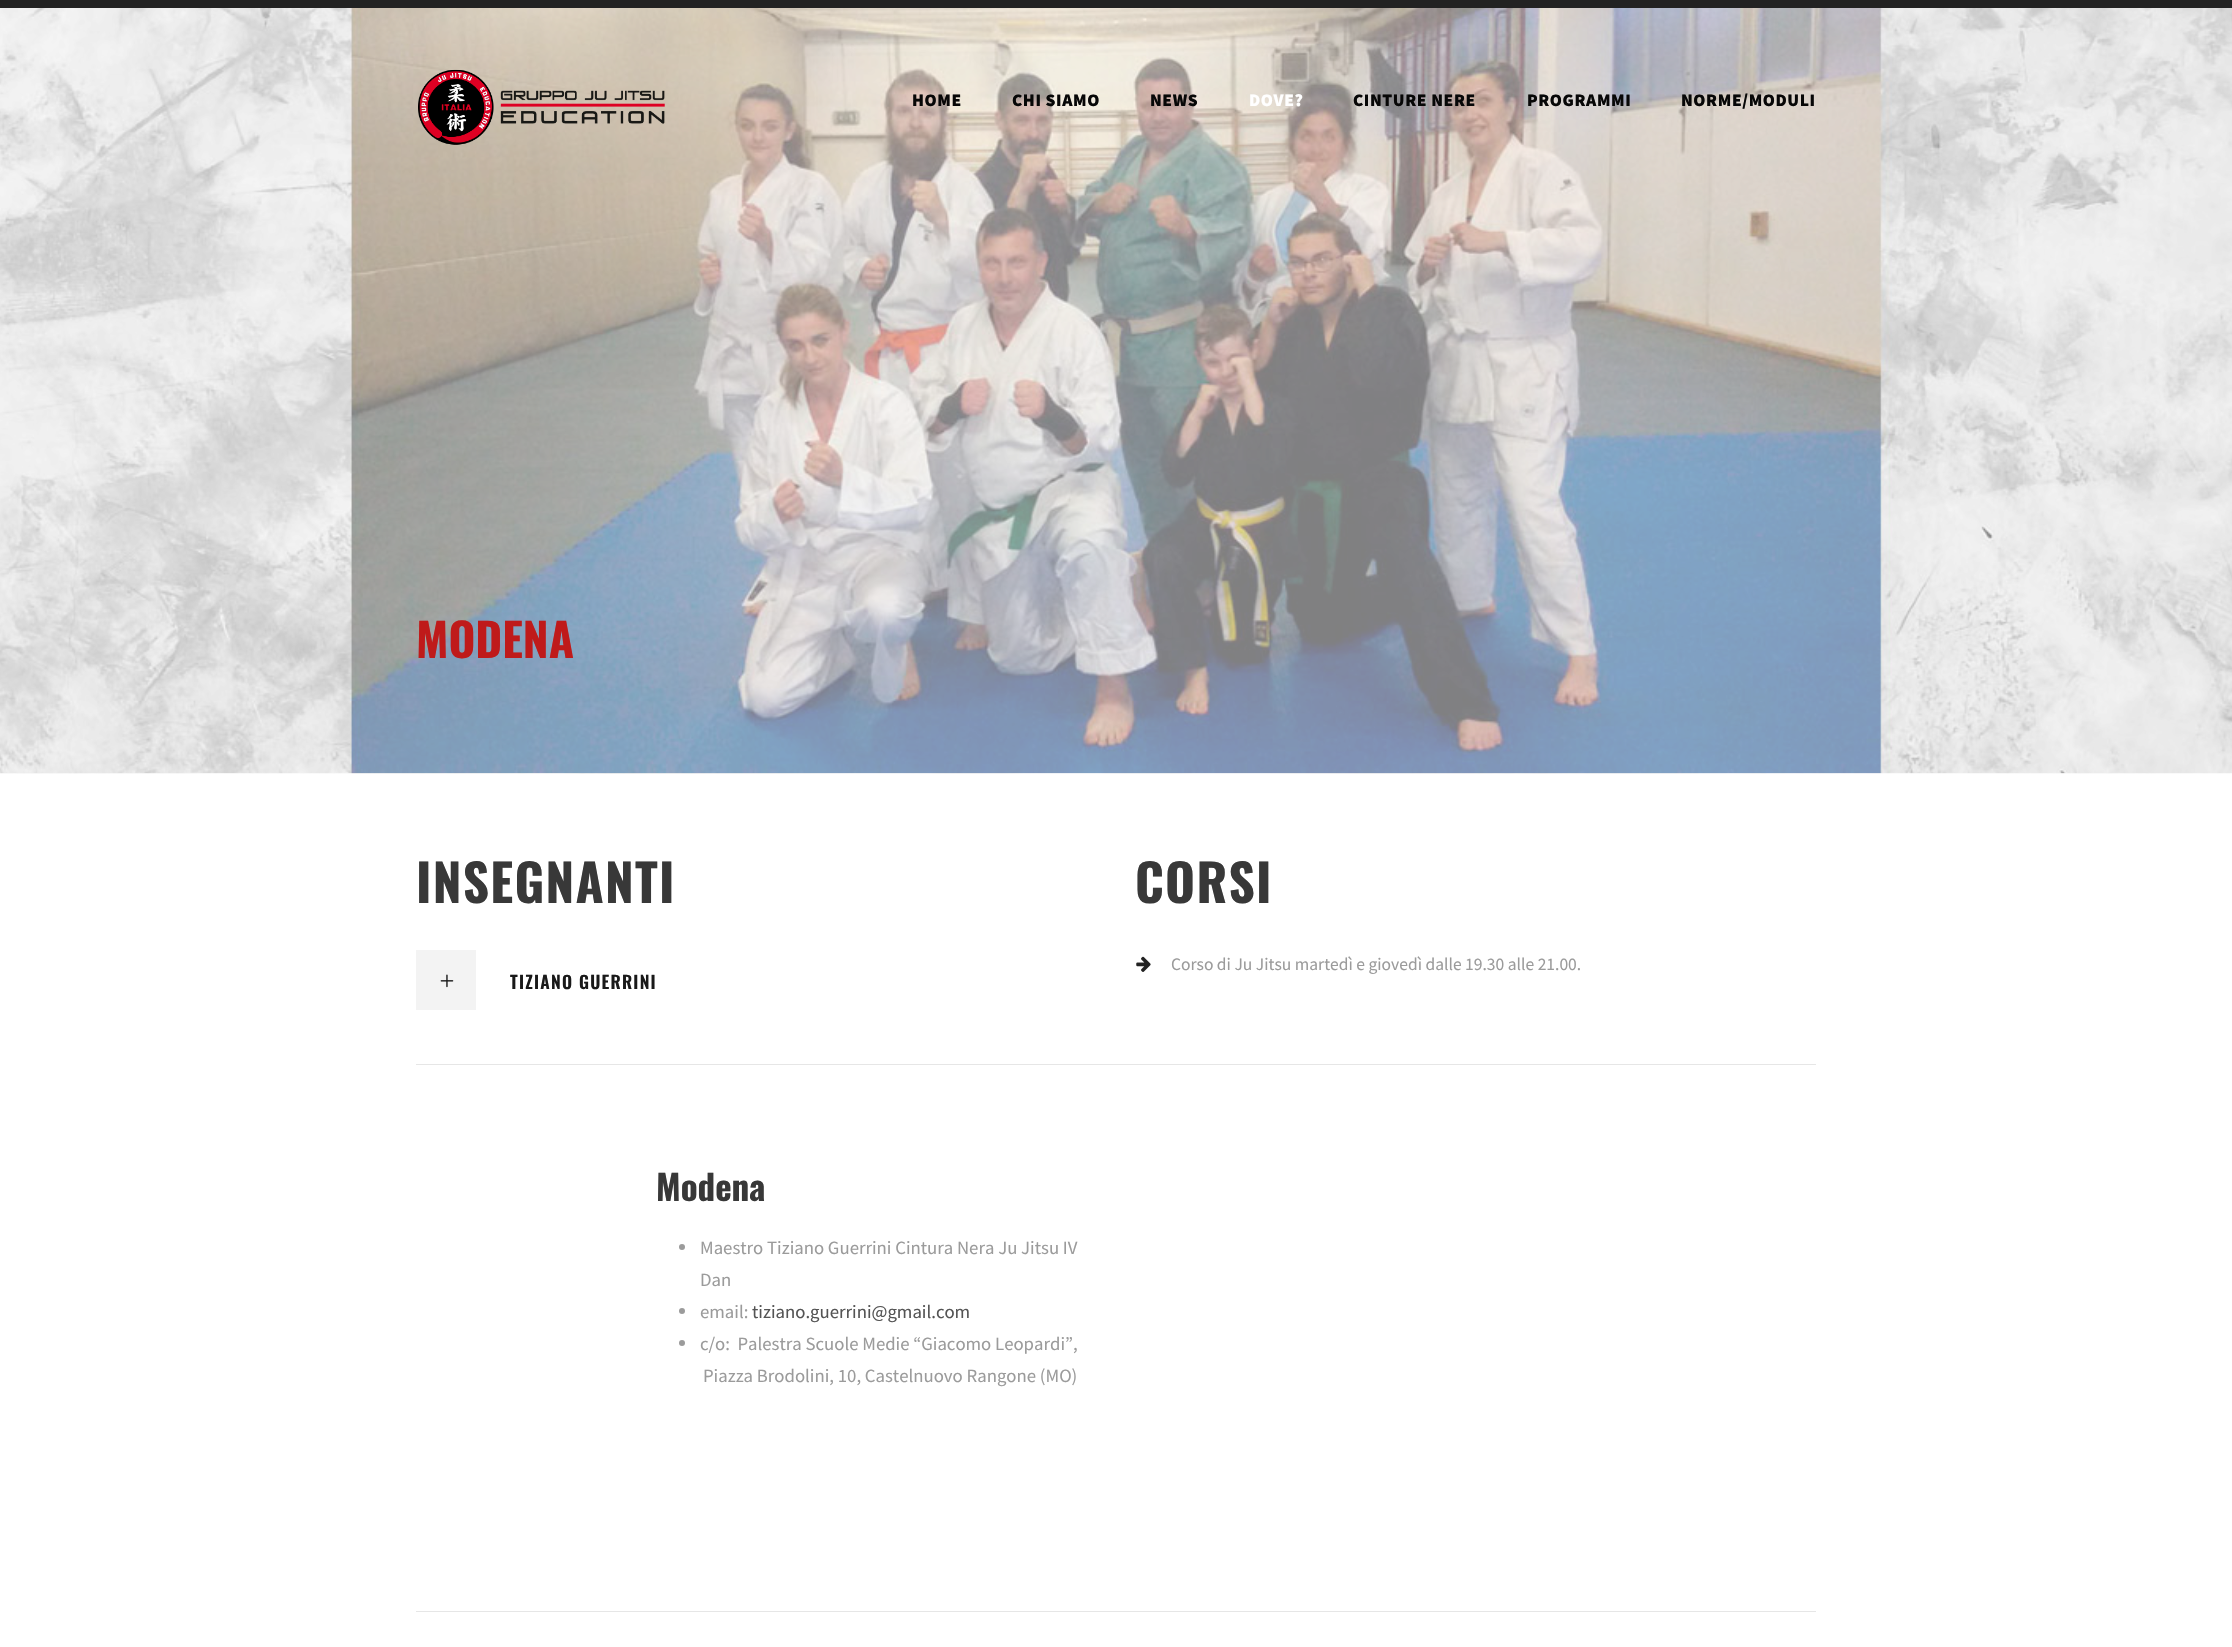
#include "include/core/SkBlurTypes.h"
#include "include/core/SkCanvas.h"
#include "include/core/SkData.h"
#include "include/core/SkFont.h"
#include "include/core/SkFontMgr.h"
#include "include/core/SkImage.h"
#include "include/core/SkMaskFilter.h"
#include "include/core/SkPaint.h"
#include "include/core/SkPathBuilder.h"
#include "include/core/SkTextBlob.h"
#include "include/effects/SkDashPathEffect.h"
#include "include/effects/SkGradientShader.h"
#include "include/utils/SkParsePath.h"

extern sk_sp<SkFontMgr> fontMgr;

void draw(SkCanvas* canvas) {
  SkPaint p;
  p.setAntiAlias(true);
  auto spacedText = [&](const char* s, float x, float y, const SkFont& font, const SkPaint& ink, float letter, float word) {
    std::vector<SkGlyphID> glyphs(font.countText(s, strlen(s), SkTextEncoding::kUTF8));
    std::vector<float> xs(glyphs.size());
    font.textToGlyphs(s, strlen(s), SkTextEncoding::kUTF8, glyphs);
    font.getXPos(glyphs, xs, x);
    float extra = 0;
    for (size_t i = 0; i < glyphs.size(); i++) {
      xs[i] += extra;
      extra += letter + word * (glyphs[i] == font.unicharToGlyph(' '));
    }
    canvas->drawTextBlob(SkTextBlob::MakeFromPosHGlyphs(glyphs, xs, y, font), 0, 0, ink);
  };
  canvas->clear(SK_ColorWHITE);
  p.setColor(SkColorSetRGB(34, 34, 34));
  canvas->drawRect(SkRect::MakeLTRB(0, 0, 2232, 8), p);
  canvas->drawImageRect(SkImages::DeferredFromEncodedData(SkData::MakeFromFileName("images/2.png")), SkRect::MakeLTRB(0, 8, 2232, 774), SkSamplingOptions());
  canvas->drawImageRect(SkImages::DeferredFromEncodedData(SkData::MakeFromFileName("images/1.png")), SkRect::MakeLTRB(418, 69, 665, 145), SkSamplingOptions());
  p.setColor(SkColorSetRGB(243, 243, 243));
  canvas->drawRect(SkRect::MakeLTRB(416, 950, 476, 1010), p);
  canvas->drawImageRect(SkImages::DeferredFromEncodedData(SkData::MakeFromFileName("images/3.png")), SkRect::MakeLTRB(440, 974, 454, 988), SkSamplingOptions());
  canvas->drawImageRect(SkImages::DeferredFromEncodedData(SkData::MakeFromFileName("images/4.png")), SkRect::MakeLTRB(1136, 956, 1151, 972), SkSamplingOptions());
  p.setColor(SkColorSetRGB(230, 230, 230));
  canvas->drawRect(SkRect::MakeLTRB(416, 1064, 1816, 1065), p);
  p.setColor(SkColorSetRGB(155, 155, 155));
  canvas->drawCircle(682, 1247, 3, p);
  canvas->drawCircle(682, 1311, 3, p);
  canvas->drawCircle(682, 1343, 3, p);
  p.setColor(SkColorSetRGB(230, 230, 230));
  canvas->drawRect(SkRect::MakeLTRB(416, 1611, 1816, 1612), p);
  SkFont font1(fontMgr->matchFamilyStyle("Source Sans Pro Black", SkFontStyle(900, SkFontStyle::kNormal_Width, SkFontStyle::kUpright_Slant)), 17.5f);
  font1.setSubpixel(true);
  p.setColor(SkColorSetRGB(7, 7, 7));
  spacedText("HOME", 912, 106, font1, p, 0.6f, 0);
  spacedText("CHI SIAMO", 1012, 106, font1, p, 0.6f, 0);
  spacedText("NEWS", 1150, 106, font1, p, 0.6f, 0);
  p.setColor(SK_ColorWHITE);
  spacedText("DOVE?", 1249, 106, font1, p, 0.6f, 0);
  p.setColor(SkColorSetRGB(7, 7, 7));
  spacedText("CINTURE NERE", 1353, 106, font1, p, 0.6f, 0);
  spacedText("PROGRAMMI", 1527, 106, font1, p, 0.6f, 0);
  spacedText("NORME/MODULI", 1681, 106, font1, p, 0.6f, 0);
  SkFont font2(fontMgr->matchFamilyStyle("Oswald", SkFontStyle::Bold()), 46);
  font2.setSubpixel(true);
  p.setColor(SkColorSetRGB(191, 26, 26));
  canvas->drawString("MODENA", 416, 658, font2, p);
  SkFont font3(fontMgr->matchFamilyStyle("Oswald", SkFontStyle::Bold()), 51.25f);
  font3.setSubpixel(true);
  p.setColor(SkColorSetRGB(56, 56, 56));
  spacedText("INSEGNANTI", 416, 903, font3, p, 1.25f, 0);
  SkFont font4(fontMgr->matchFamilyStyle("Oswald", SkFontStyle(600, SkFontStyle::kNormal_Width, SkFontStyle::kUpright_Slant)), 17.5f);
  font4.setSubpixel(true);
  p.setColor(SkColorSetRGB(25, 25, 25));
  spacedText("TIZIANO GUERRINI", 510, 989, font4, p, 1.25f, 0);
  p.setColor(SkColorSetRGB(56, 56, 56));
  spacedText("CORSI", 1135, 903, font3, p, 1.25f, 0);
  SkFont font5(fontMgr->matchFamilyStyle("Source Sans Pro", SkFontStyle::Normal()), 17.5f);
  font5.setSubpixel(true);
  p.setColor(SkColorSetRGB(155, 155, 155));
  canvas->drawString("Corso di Ju Jitsu martedì e giovedì dalle 19.30 alle 21.00.", 1171, 970, font5, p);
  SkFont font6(fontMgr->matchFamilyStyle("Oswald", SkFontStyle::Bold()), 35);
  font6.setSubpixel(true);
  p.setColor(SkColorSetRGB(56, 56, 56));
  canvas->drawString("Modena", 656, 1201, font6, p);
  SkFont font7(fontMgr->matchFamilyStyle("Source Sans Pro", SkFontStyle::Normal()), 18.75f);
  font7.setSubpixel(true);
  p.setColor(SkColorSetRGB(155, 155, 155));
  canvas->drawString("Maestro Tiziano Guerrini Cintura Nera Ju Jitsu IV", 700, 1254, font7, p);
  canvas->drawString("Dan", 700, 1286, font7, p);
  canvas->drawString("email:", 700, 1318, font7, p);
  p.setColor(SkColorSetRGB(84, 84, 84));
  canvas->drawString("tiziano.guerrini@gmail.com", 752, 1318, font7, p);
  p.setColor(SkColorSetRGB(155, 155, 155));
  canvas->drawString("c/o:  Palestra Scuole Medie “Giacomo Leopardi”,", 700, 1350, font7, p);
  canvas->drawString("Piazza Brodolini, 10, Castelnuovo Rangone (MO)", 703, 1382, font7, p);
}
